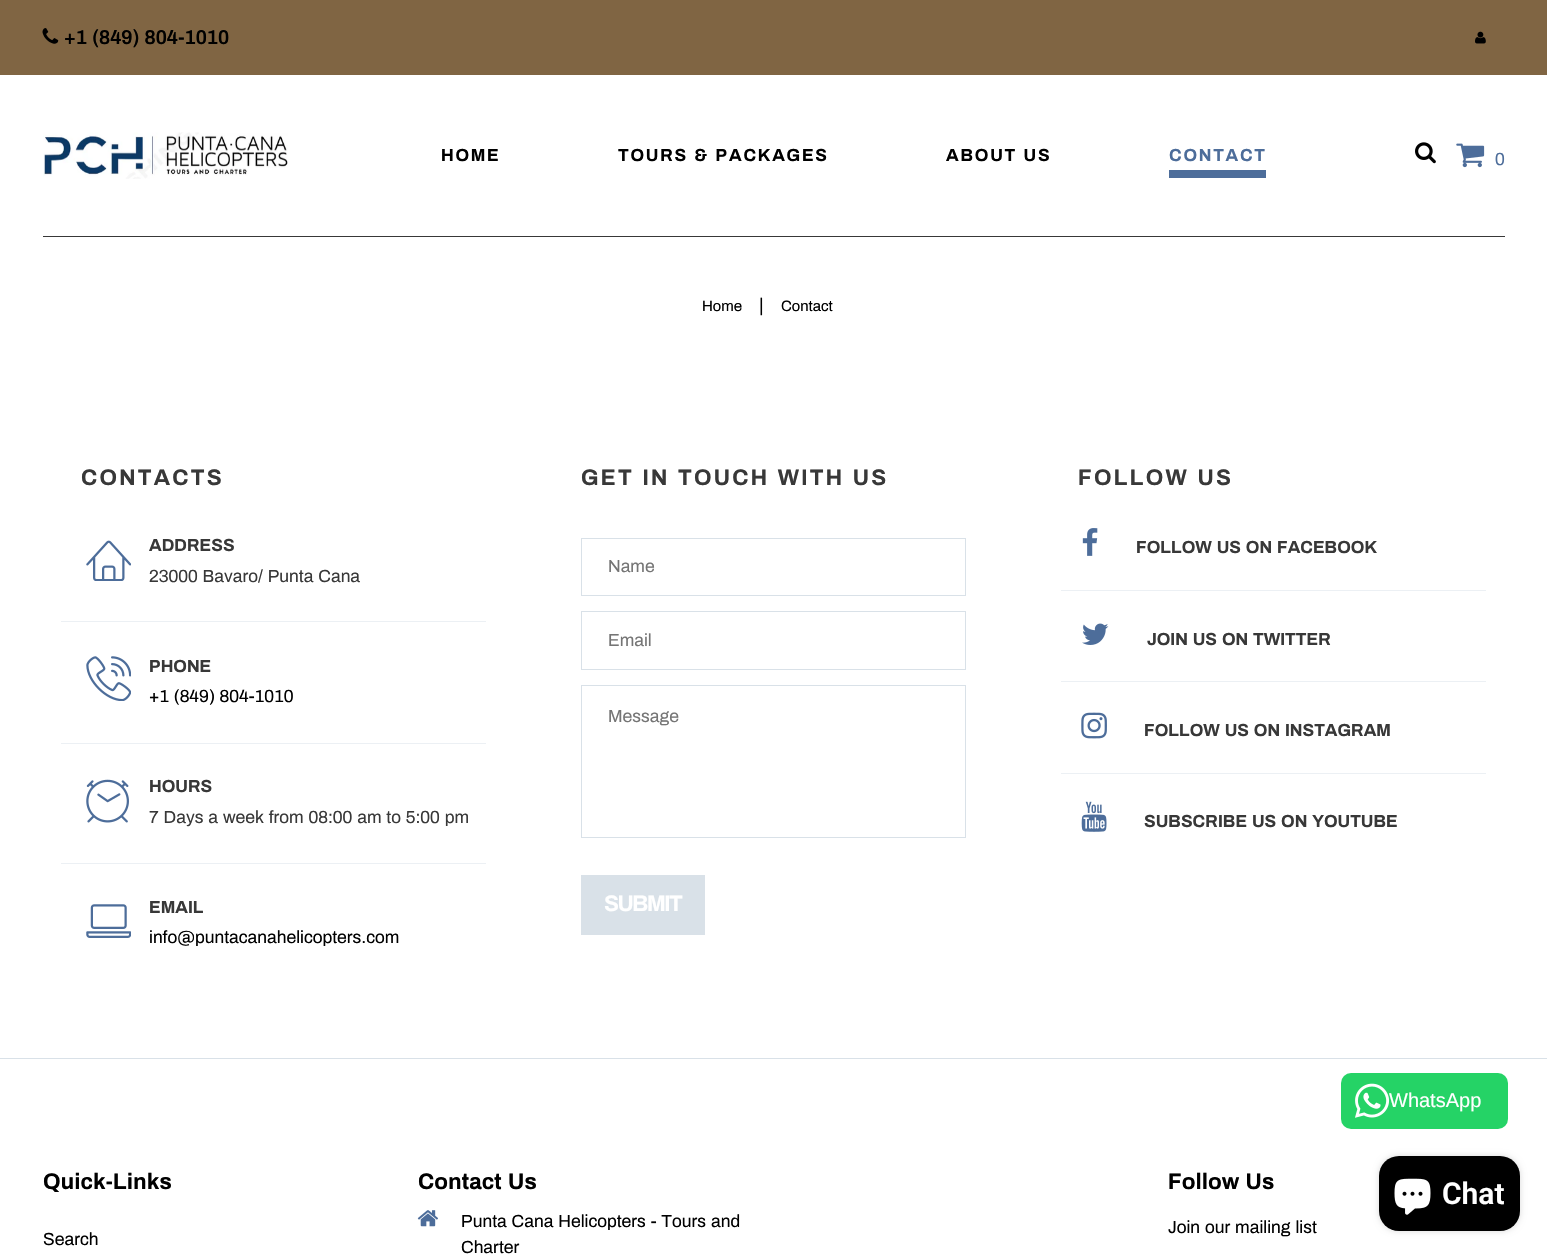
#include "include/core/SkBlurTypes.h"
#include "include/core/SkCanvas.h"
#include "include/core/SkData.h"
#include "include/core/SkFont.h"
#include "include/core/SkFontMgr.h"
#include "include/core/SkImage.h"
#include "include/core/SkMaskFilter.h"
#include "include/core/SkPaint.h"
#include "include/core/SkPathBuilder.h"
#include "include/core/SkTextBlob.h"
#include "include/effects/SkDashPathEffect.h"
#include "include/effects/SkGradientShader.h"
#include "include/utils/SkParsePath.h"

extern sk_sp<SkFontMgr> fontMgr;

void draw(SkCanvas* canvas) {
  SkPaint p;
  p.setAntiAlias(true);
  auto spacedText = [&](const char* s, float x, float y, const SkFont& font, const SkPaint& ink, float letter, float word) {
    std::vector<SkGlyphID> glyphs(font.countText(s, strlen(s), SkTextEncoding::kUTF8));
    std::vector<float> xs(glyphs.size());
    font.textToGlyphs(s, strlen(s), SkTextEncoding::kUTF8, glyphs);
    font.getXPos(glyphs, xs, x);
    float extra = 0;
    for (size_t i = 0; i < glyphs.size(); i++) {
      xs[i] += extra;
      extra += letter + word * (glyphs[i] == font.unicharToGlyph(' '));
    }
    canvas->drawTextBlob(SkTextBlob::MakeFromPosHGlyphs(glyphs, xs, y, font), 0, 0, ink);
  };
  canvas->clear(SK_ColorWHITE);
  p.setColor(SkColorSetRGB(128, 101, 67));
  canvas->drawRect(SkRect::MakeLTRB(0, 0, 1547, 75), p);
  canvas->drawImageRect(SkImages::DeferredFromEncodedData(SkData::MakeFromFileName("images/1.png")), SkRect::MakeLTRB(42, 28, 59, 44), SkSamplingOptions());
  canvas->drawImageRect(SkImages::DeferredFromEncodedData(SkData::MakeFromFileName("images/2.png")), SkRect::MakeLTRB(1475, 31, 1486, 44), SkSamplingOptions());
  canvas->drawImageRect(SkImages::DeferredFromEncodedData(SkData::MakeFromFileName("images/3.png")), SkRect::MakeLTRB(43, 132, 288, 179), SkSamplingOptions());
  p.setColor(SkColorSetRGB(77, 109, 154));
  canvas->drawRect(SkRect::MakeLTRB(1169, 170, 1266, 178), p);
  canvas->drawImageRect(SkImages::DeferredFromEncodedData(SkData::MakeFromFileName("images/4.png")), SkRect::MakeLTRB(1415, 142, 1436, 164), SkSamplingOptions());
  canvas->drawImageRect(SkImages::DeferredFromEncodedData(SkData::MakeFromFileName("images/5.png")), SkRect::MakeLTRB(1456, 143, 1485, 168), SkSamplingOptions());
  p.setColor(SkColorSetRGB(56, 56, 56));
  canvas->drawRect(SkRect::MakeLTRB(43, 236, 1505, 237), p);
  p.setColor(SkColorSetRGB(236, 240, 244));
  canvas->drawRect(SkRect::MakeLTRB(61, 621, 486, 622), p);
  canvas->drawImageRect(SkImages::DeferredFromEncodedData(SkData::MakeFromFileName("images/6.png")), SkRect::MakeLTRB(86, 540, 131, 581), SkSamplingOptions());
  canvas->drawRect(SkRect::MakeLTRB(61, 743, 486, 744), p);
  canvas->drawImageRect(SkImages::DeferredFromEncodedData(SkData::MakeFromFileName("images/7.png")), SkRect::MakeLTRB(86, 656, 131, 701), SkSamplingOptions());
  canvas->drawRect(SkRect::MakeLTRB(61, 863, 486, 864), p);
  canvas->drawImageRect(SkImages::DeferredFromEncodedData(SkData::MakeFromFileName("images/8.png")), SkRect::MakeLTRB(86, 779, 129, 823), SkSamplingOptions());
  canvas->drawImageRect(SkImages::DeferredFromEncodedData(SkData::MakeFromFileName("images/9.png")), SkRect::MakeLTRB(86, 904, 131, 938), SkSamplingOptions());
  p.setStyle(SkPaint::kStroke_Style);
  p.setStrokeWidth(1);
  p.setColor(SkColorSetRGB(217, 225, 232));
  canvas->drawRect(SkRect::MakeLTRB(581.5f, 538.5f, 965.5f, 595.5f), p);
  canvas->drawRect(SkRect::MakeLTRB(581.5f, 611.5f, 965.5f, 669.5f), p);
  canvas->drawRect(SkRect::MakeLTRB(581.5f, 685.5f, 965.5f, 837.5f), p);
  p.setStyle(SkPaint::kFill_Style);
  canvas->drawRect(SkRect::MakeLTRB(581, 875, 705, 935), p);
  p.setColor(SkColorSetRGB(236, 240, 244));
  canvas->drawRect(SkRect::MakeLTRB(1061, 590, 1486, 591), p);
  canvas->drawImageRect(SkImages::DeferredFromEncodedData(SkData::MakeFromFileName("images/10.png")), SkRect::MakeLTRB(1082, 528, 1098, 556), SkSamplingOptions());
  canvas->drawRect(SkRect::MakeLTRB(1061, 681, 1486, 682), p);
  canvas->drawImageRect(SkImages::DeferredFromEncodedData(SkData::MakeFromFileName("images/11.png")), SkRect::MakeLTRB(1082, 623, 1109, 645), SkSamplingOptions());
  canvas->drawRect(SkRect::MakeLTRB(1061, 773, 1486, 774), p);
  canvas->drawImageRect(SkImages::DeferredFromEncodedData(SkData::MakeFromFileName("images/12.png")), SkRect::MakeLTRB(1081, 712, 1107, 739), SkSamplingOptions());
  canvas->drawImageRect(SkImages::DeferredFromEncodedData(SkData::MakeFromFileName("images/13.png")), SkRect::MakeLTRB(1081, 801, 1107, 832), SkSamplingOptions());
  p.setColor(SkColorSetRGB(217, 225, 232));
  canvas->drawRect(SkRect::MakeLTRB(0, 1058, 1547, 1059), p);
  canvas->drawImageRect(SkImages::DeferredFromEncodedData(SkData::MakeFromFileName("images/14.png")), SkRect::MakeLTRB(417, 1210, 438, 1227), SkSamplingOptions());
  p.setColor(SkColorSetRGB(37, 211, 102));
  canvas->drawRoundRect(SkRect::MakeLTRB(1341, 1073, 1508, 1129), 10, 10, p);
  p.setColor(SkColorSetARGB(38, 0, 0, 0));
  p.setMaskFilter(SkMaskFilter::MakeBlur(kNormal_SkBlurStyle, 3));
  canvas->drawRoundRect(SkRect::MakeLTRB(1379, 1156, 1520, 1231), 20, 20, p);
  p.setMaskFilter(nullptr);
  p.setColor(SK_ColorBLACK);
  canvas->drawRoundRect(SkRect::MakeLTRB(1379, 1156, 1520, 1231), 20, 20, p);
  canvas->drawImageRect(SkImages::DeferredFromEncodedData(SkData::MakeFromFileName("images/16.png")), SkRect::MakeLTRB(1394, 1178, 1431, 1215), SkSamplingOptions());
  SkFont font1(fontMgr->matchFamilyStyle("Archivo", SkFontStyle(600, SkFontStyle::kNormal_Width, SkFontStyle::kUpright_Slant)), 20);
  font1.setSubpixel(true);
  canvas->drawString("+1 (849) 804-1010", 64, 44, font1, p);
  SkFont font2(fontMgr->matchFamilyStyle("Archivo", SkFontStyle::Bold()), 17.5f);
  font2.setSubpixel(true);
  spacedText("HOME", 441, 161, font2, p, 1.75f, 0);
  spacedText("TOURS & PACKAGES", 618, 161, font2, p, 1.75f, 0);
  spacedText("ABOUT US", 946, 161, font2, p, 1.75f, 0);
  p.setColor(SkColorSetRGB(77, 109, 154));
  spacedText("CONTACT", 1169, 161, font2, p, 1.75f, 0);
  SkFont font3(fontMgr->matchFamilyStyle("Archivo", SkFontStyle::Normal()), 17.5f);
  font3.setSubpixel(true);
  canvas->drawString("0", 1495, 165, font3, p);
  SkFont font4(fontMgr->matchFamilyStyle("Archivo", SkFontStyle::Normal()), 15);
  font4.setSubpixel(true);
  p.setColor(SK_ColorBLACK);
  canvas->drawString("Home", 702, 311, font4, p);
  SkFont font5(fontMgr->matchFamilyStyle("DejaVu Sans", SkFontStyle::Normal()), 17.5f);
  font5.setSubpixel(true);
  canvas->drawString("❘", 754, 311, font5, p);
  canvas->drawString("Contact", 781, 311, font4, p);
  SkFont font6(fontMgr->matchFamilyStyle("Archivo", SkFontStyle::Bold()), 22.5f);
  font6.setSubpixel(true);
  p.setColor(SkColorSetRGB(56, 56, 56));
  spacedText("CONTACTS", 81, 485, font6, p, 2.25f, 0);
  canvas->drawString("ADDRESS", 149, 551, font2, p);
  canvas->drawString("23000 Bavaro/ Punta Cana", 149, 582, font3, p);
  canvas->drawString("PHONE", 149, 672, font2, p);
  p.setColor(SK_ColorBLACK);
  canvas->drawString("+1 (849) 804-1010", 149, 702, font3, p);
  p.setColor(SkColorSetRGB(56, 56, 56));
  canvas->drawString("HOURS", 149, 792, font2, p);
  canvas->drawString("7 Days a week from 08:00 am to 5:00 pm", 149, 823, font3, p);
  canvas->drawString("EMAIL", 149, 913, font2, p);
  p.setColor(SK_ColorBLACK);
  canvas->drawString("info@puntacanahelicopters.com", 149, 943, font3, p);
  p.setColor(SkColorSetRGB(56, 56, 56));
  spacedText("GET IN TOUCH WITH US", 581, 485, font6, p, 2.25f, 0);
  p.setColor(SkColorSetRGB(117, 117, 117));
  canvas->drawString("Name", 608, 572, font3, p);
  canvas->drawString("Email", 608, 646, font3, p);
  canvas->drawString("Message", 608, 722, font3, p);
  p.setColor(SK_ColorWHITE);
  spacedText("SUBMIT", 604, 911, font6, p, -1.5f, 0);
  p.setColor(SkColorSetRGB(56, 56, 56));
  spacedText("FOLLOW US", 1078, 485, font6, p, 2.25f, 0);
  canvas->drawString("FOLLOW US ON FACEBOOK", 1136, 553, font2, p);
  canvas->drawString("JOIN US ON TWITTER", 1147, 645, font2, p);
  canvas->drawString("FOLLOW US ON INSTAGRAM", 1144, 736, font2, p);
  canvas->drawString("SUBSCRIBE US ON YOUTUBE", 1144, 827, font2, p);
  p.setColor(SK_ColorBLACK);
  canvas->drawString("Quick-Links", 43, 1189, font6, p);
  canvas->drawString("Search", 43, 1245, font3, p);
  canvas->drawString("Contact Us", 418, 1189, font6, p);
  canvas->drawString("Punta Cana Helicopters - Tours and", 461, 1227, font3, p);
  canvas->drawString("Charter", 461, 1253, font3, p);
  canvas->drawString("Follow Us", 1168, 1189, font6, p);
  canvas->drawString("Join our mailing list", 1168, 1233, font3, p);
  SkFont font7(fontMgr->matchFamilyStyle("Liberation Sans", SkFontStyle::Normal()), 20);
  font7.setSubpixel(true);
  p.setColor(SK_ColorWHITE);
  canvas->drawString("WhatsApp", 1389, 1107, font7, p);
  canvas->drawImageRect(SkImages::DeferredFromEncodedData(SkData::MakeFromFileName("images/15.png")), SkRect::MakeLTRB(1355, 1083, 1390, 1118), SkSamplingOptions());
  SkFont font8(fontMgr->matchFamilyStyle("Roboto", SkFontStyle(600, SkFontStyle::kNormal_Width, SkFontStyle::kUpright_Slant)), 30);
  font8.setSubpixel(true);
  canvas->drawString("Chat", 1442, 1204, font8, p);
}
